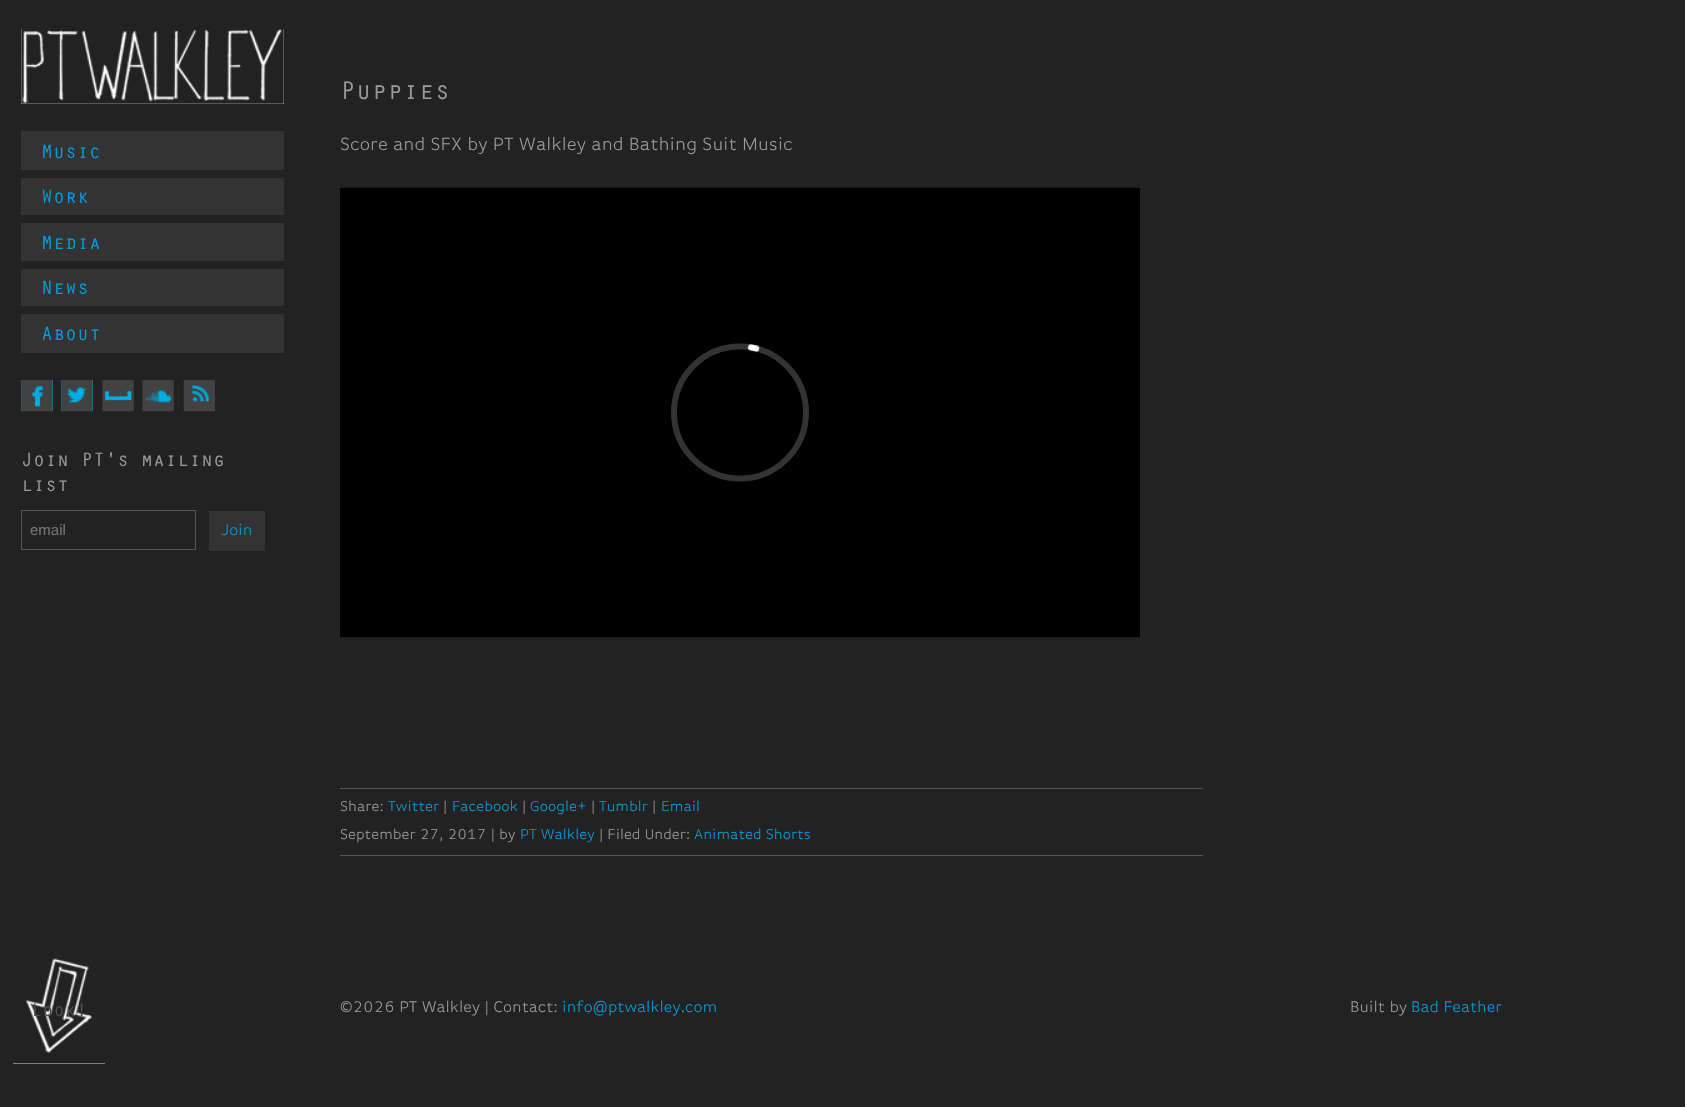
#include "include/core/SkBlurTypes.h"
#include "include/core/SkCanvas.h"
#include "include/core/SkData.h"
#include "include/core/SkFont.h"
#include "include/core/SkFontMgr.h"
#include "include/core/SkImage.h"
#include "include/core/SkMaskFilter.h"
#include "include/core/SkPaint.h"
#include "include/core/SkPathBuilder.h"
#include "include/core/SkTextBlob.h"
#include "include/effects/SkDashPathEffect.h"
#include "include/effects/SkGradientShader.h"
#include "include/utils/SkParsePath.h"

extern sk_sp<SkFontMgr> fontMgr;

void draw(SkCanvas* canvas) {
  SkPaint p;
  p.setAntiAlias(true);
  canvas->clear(SkColorSetRGB(34, 34, 34));
  p.setColor(SK_ColorWHITE);
  canvas->drawRect(SkRect::MakeLTRB(21, 29, 284, 104), p);
  canvas->drawImageRect(SkImages::DeferredFromEncodedData(SkData::MakeFromFileName("images/1.png")), SkRect::MakeLTRB(21, 29, 284, 104), SkSamplingOptions());
  p.setColor(SkColorSetRGB(51, 51, 51));
  canvas->drawRect(SkRect::MakeLTRB(21, 131, 284, 170), p);
  canvas->drawRect(SkRect::MakeLTRB(21, 178, 284, 215), p);
  canvas->drawRect(SkRect::MakeLTRB(21, 223, 284, 261), p);
  canvas->drawRect(SkRect::MakeLTRB(21, 269, 284, 306), p);
  canvas->drawRect(SkRect::MakeLTRB(21, 314, 284, 353), p);
  p.setColor(SkColorSetRGB(4, 156, 219));
  canvas->drawRect(SkRect::MakeLTRB(21, 380, 53, 411), p);
  canvas->drawImageRect(SkImages::DeferredFromEncodedData(SkData::MakeFromFileName("images/2.png")), SkRect::MakeLTRB(21, 380, 53, 412), SkSamplingOptions());
  canvas->drawRect(SkRect::MakeLTRB(61, 380, 93, 411), p);
  canvas->drawImageRect(SkImages::DeferredFromEncodedData(SkData::MakeFromFileName("images/3.png")), SkRect::MakeLTRB(61, 380, 93, 412), SkSamplingOptions());
  canvas->drawImageRect(SkImages::DeferredFromEncodedData(SkData::MakeFromFileName("images/4.png")), SkRect::MakeLTRB(102, 380, 134, 412), SkSamplingOptions());
  canvas->drawImageRect(SkImages::DeferredFromEncodedData(SkData::MakeFromFileName("images/5.png")), SkRect::MakeLTRB(142, 380, 174, 412), SkSamplingOptions());
  canvas->drawImageRect(SkImages::DeferredFromEncodedData(SkData::MakeFromFileName("images/6.png")), SkRect::MakeLTRB(183, 380, 215, 412), SkSamplingOptions());
  p.setStyle(SkPaint::kStroke_Style);
  p.setStrokeWidth(1);
  p.setColor(SkColorSetRGB(85, 85, 85));
  canvas->drawRect(SkRect::MakeLTRB(21.5f, 510.5f, 195.5f, 549.5f), p);
  p.setStyle(SkPaint::kFill_Style);
  p.setColor(SkColorSetRGB(51, 51, 51));
  canvas->drawRect(SkRect::MakeLTRB(209, 511, 265, 551), p);
  canvas->drawImageRect(SkImages::DeferredFromEncodedData(SkData::MakeFromFileName("images/7.png")), SkRect::MakeLTRB(340, 187, 1140, 638), SkSamplingOptions());
  p.setColor(SkColorSetRGB(85, 85, 85));
  canvas->drawRect(SkRect::MakeLTRB(340, 788, 1203, 789), p);
  canvas->drawRect(SkRect::MakeLTRB(340, 855, 1203, 856), p);
  p.setColor(SK_ColorWHITE);
  canvas->drawRect(SkRect::MakeLTRB(13, 958, 105, 1064), p);
  canvas->drawImageRect(SkImages::DeferredFromEncodedData(SkData::MakeFromFileName("images/8.png")), SkRect::MakeLTRB(13, 954, 105, 1064), SkSamplingOptions());
  SkFont font1(fontMgr->matchFamilyStyle("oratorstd", SkFontStyle::Normal()), 20);
  font1.setSubpixel(true);
  p.setColor(SkColorSetRGB(4, 156, 219));
  canvas->drawString("Music", 41, 158, font1, p);
  canvas->drawString("Work", 41, 203, font1, p);
  canvas->drawString("Media", 41, 249, font1, p);
  canvas->drawString("News", 41, 294, font1, p);
  canvas->drawString("About", 41, 340, font1, p);
  p.setColor(SkColorSetRGB(153, 153, 153));
  canvas->drawString("Join PT's mailing", 21, 466, font1, p);
  canvas->drawString("list", 21, 491, font1, p);
  SkFont font2(fontMgr->matchFamilyStyle("Liberation Sans", SkFontStyle::Normal()), 15);
  font2.setSubpixel(true);
  p.setColor(SkColorSetRGB(117, 117, 117));
  canvas->drawString("email", 30, 535, font2, p);
  SkFont font3(fontMgr->matchFamilyStyle("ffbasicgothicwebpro", SkFontStyle::Normal()), 16.25f);
  font3.setSubpixel(true);
  p.setColor(SkColorSetRGB(4, 156, 219));
  canvas->drawString("Join", 221, 535, font3, p);
  SkFont font4(fontMgr->matchFamilyStyle("oratorstd", SkFontStyle::Normal()), 26.25f);
  font4.setSubpixel(true);
  p.setColor(SkColorSetRGB(153, 153, 153));
  canvas->drawString("Puppies", 340, 99, font4, p);
  SkFont font5(fontMgr->matchFamilyStyle("ffbasicgothicwebpro", SkFontStyle::Normal()), 18.75f);
  font5.setSubpixel(true);
  canvas->drawString("Score and SFX by PT Walkley and Bathing Suit Music", 340, 150, font5, p);
  SkFont font6(fontMgr->matchFamilyStyle("ffbasicgothicwebpro", SkFontStyle::Normal()), 15);
  font6.setSubpixel(true);
  canvas->drawString("Share:", 340, 811, font6, p);
  p.setColor(SkColorSetRGB(4, 156, 219));
  canvas->drawString("Twitter", 388, 811, font6, p);
  p.setColor(SkColorSetRGB(153, 153, 153));
  canvas->drawString("|", 443, 811, font6, p);
  p.setColor(SkColorSetRGB(4, 156, 219));
  canvas->drawString("Facebook", 452, 811, font6, p);
  p.setColor(SkColorSetRGB(153, 153, 153));
  canvas->drawString("|", 522, 811, font6, p);
  p.setColor(SkColorSetRGB(4, 156, 219));
  canvas->drawString("Google+", 530, 811, font6, p);
  p.setColor(SkColorSetRGB(153, 153, 153));
  canvas->drawString("|", 591, 811, font6, p);
  p.setColor(SkColorSetRGB(4, 156, 219));
  canvas->drawString("Tumblr", 599, 811, font6, p);
  p.setColor(SkColorSetRGB(153, 153, 153));
  canvas->drawString("|", 652, 811, font6, p);
  p.setColor(SkColorSetRGB(4, 156, 219));
  canvas->drawString("Email", 661, 811, font6, p);
  p.setColor(SkColorSetRGB(153, 153, 153));
  canvas->drawString("September 27, 2017 | by", 340, 839, font6, p);
  p.setColor(SkColorSetRGB(4, 156, 219));
  canvas->drawString("PT Walkley", 520, 839, font6, p);
  p.setColor(SkColorSetRGB(153, 153, 153));
  canvas->drawString("| Filed Under:", 599, 839, font6, p);
  p.setColor(SkColorSetRGB(4, 156, 219));
  canvas->drawString("Animated Shorts", 694, 839, font6, p);
  SkFont font7(fontMgr->matchFamilyStyle("oratorstd", SkFontStyle::Normal()), 18.75f);
  font7.setSubpixel(true);
  p.setColor(SkColorSetRGB(78, 78, 78));
  canvas->drawString("Look!", 31, 1016, font7, p);
  p.setColor(SkColorSetRGB(153, 153, 153));
  canvas->drawString("©2026 PT Walkley | Contact:", 340, 1012, font3, p);
  p.setColor(SkColorSetRGB(4, 156, 219));
  canvas->drawString("info@ptwalkley.com", 562, 1012, font3, p);
  p.setColor(SkColorSetRGB(153, 153, 153));
  canvas->drawString("Built by", 1350, 1012, font3, p);
  p.setColor(SkColorSetRGB(4, 156, 219));
  canvas->drawString("Bad Feather", 1411, 1012, font3, p);
}
